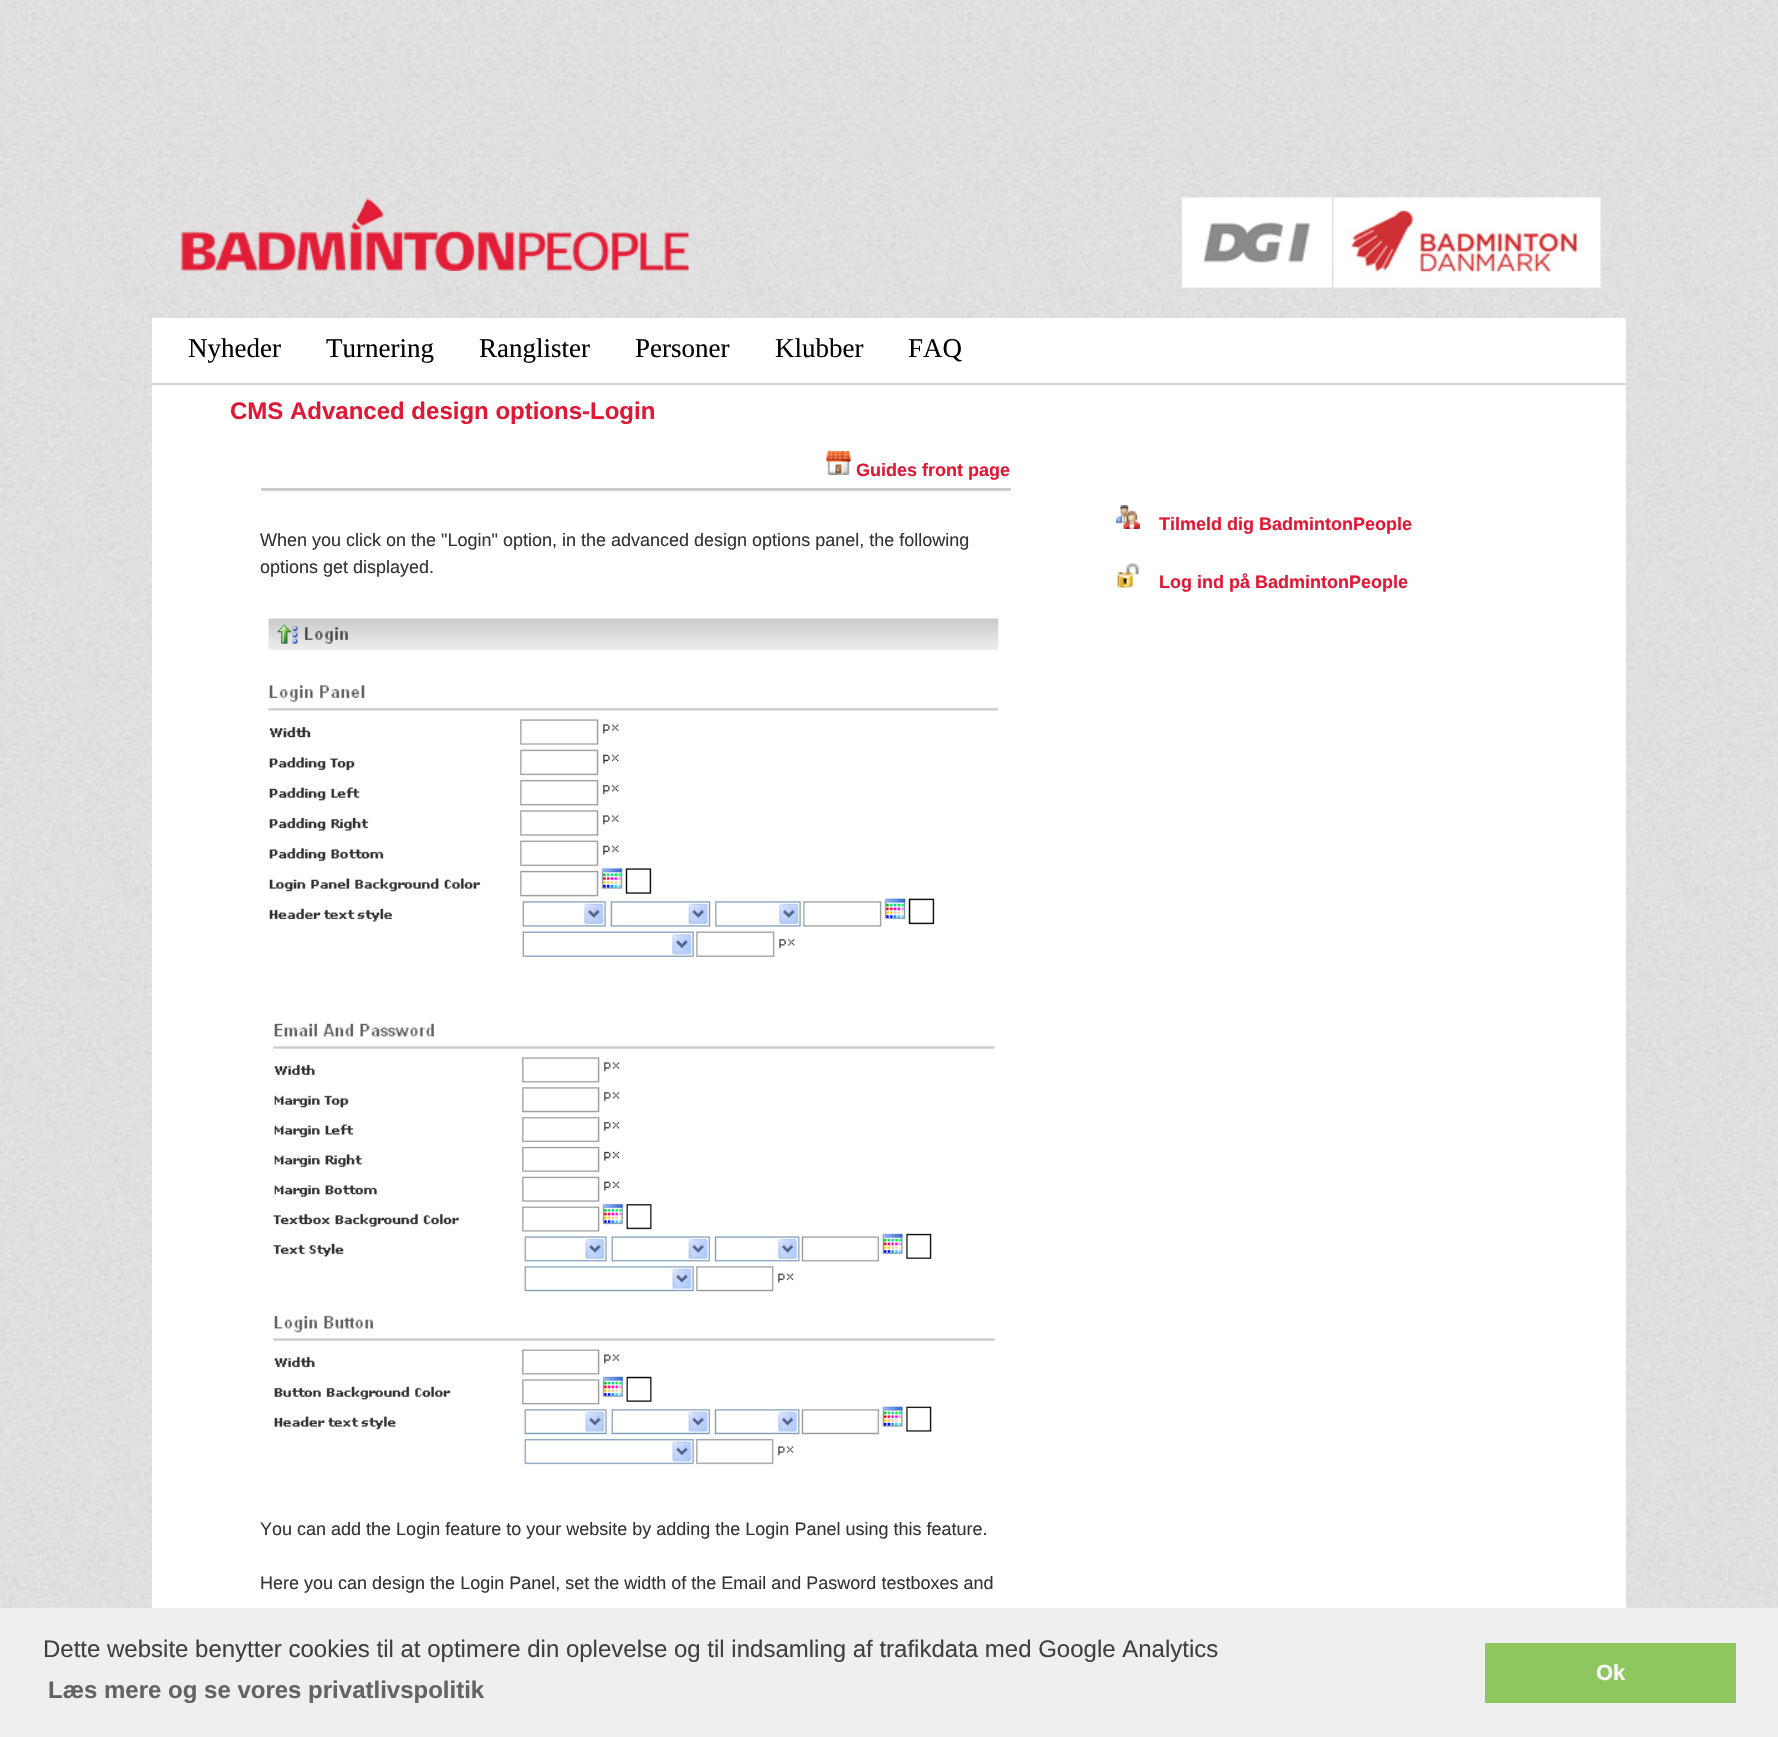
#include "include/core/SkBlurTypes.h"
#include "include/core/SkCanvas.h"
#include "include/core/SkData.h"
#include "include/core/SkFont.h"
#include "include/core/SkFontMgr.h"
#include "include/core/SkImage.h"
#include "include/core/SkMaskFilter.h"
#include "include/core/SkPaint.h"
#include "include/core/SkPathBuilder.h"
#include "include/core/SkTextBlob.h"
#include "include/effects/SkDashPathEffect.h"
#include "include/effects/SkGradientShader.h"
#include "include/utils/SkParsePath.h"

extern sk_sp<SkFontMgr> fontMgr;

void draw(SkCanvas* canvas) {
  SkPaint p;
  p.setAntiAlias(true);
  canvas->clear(SK_ColorWHITE);
  canvas->drawImageRect(SkImages::DeferredFromEncodedData(SkData::MakeFromFileName("images/1.png")), SkRect::MakeLTRB(0, 0, 1778, 1608), SkSamplingOptions());
  canvas->drawImageRect(SkImages::DeferredFromEncodedData(SkData::MakeFromFileName("images/2.png")), SkRect::MakeLTRB(181, 197, 689, 271), SkSamplingOptions());
  canvas->drawImageRect(SkImages::DeferredFromEncodedData(SkData::MakeFromFileName("images/3.png")), SkRect::MakeLTRB(1182, 197, 1332, 288), SkSamplingOptions());
  canvas->drawImageRect(SkImages::DeferredFromEncodedData(SkData::MakeFromFileName("images/4.png")), SkRect::MakeLTRB(1333, 197, 1601, 288), SkSamplingOptions());
  p.setColor(SK_ColorWHITE);
  canvas->drawRect(SkRect::MakeLTRB(152, 318, 1626, 383), p);
  p.setColor(SkColorSetRGB(211, 211, 211));
  canvas->drawRect(SkRect::MakeLTRB(152, 383, 1626, 385), p);
  p.setColor(SK_ColorWHITE);
  canvas->drawRect(SkRect::MakeLTRB(152, 385, 1626, 1608), p);
  canvas->drawImageRect(SkImages::DeferredFromEncodedData(SkData::MakeFromFileName("images/5.png")), SkRect::MakeLTRB(826, 451, 851, 475), SkSamplingOptions());
  p.setColor(SkColorSetRGB(204, 204, 204));
  canvas->drawRect(SkRect::MakeLTRB(261, 488, 1011, 491), p);
  canvas->drawImageRect(SkImages::DeferredFromEncodedData(SkData::MakeFromFileName("images/6.png")), SkRect::MakeLTRB(268, 618, 999, 957), SkSamplingOptions());
  canvas->drawImageRect(SkImages::DeferredFromEncodedData(SkData::MakeFromFileName("images/7.png")), SkRect::MakeLTRB(273, 1023, 995, 1465), SkSamplingOptions());
  canvas->drawImageRect(SkImages::DeferredFromEncodedData(SkData::MakeFromFileName("images/8.png")), SkRect::MakeLTRB(1116, 505, 1140, 529), SkSamplingOptions());
  canvas->drawImageRect(SkImages::DeferredFromEncodedData(SkData::MakeFromFileName("images/9.png")), SkRect::MakeLTRB(1117, 563, 1139, 588), SkSamplingOptions());
  p.setColor(SkColorSetRGB(239, 239, 239));
  canvas->drawRect(SkRect::MakeLTRB(0, 1608, 1778, 1737), p);
  p.setColor(SkColorSetRGB(142, 199, 96));
  canvas->drawRect(SkRect::MakeLTRB(1485, 1643, 1736, 1703), p);
  SkFont font1(fontMgr->matchFamilyStyle("Liberation Serif", SkFontStyle::Normal()), 27);
  font1.setSubpixel(true);
  p.setColor(SK_ColorBLACK);
  canvas->drawString("Nyheder", 188, 357, font1, p);
  canvas->drawString("Turnering", 326, 357, font1, p);
  canvas->drawString("Ranglister", 479, 357, font1, p);
  canvas->drawString("Personer", 635, 357, font1, p);
  canvas->drawString("Klubber", 775, 357, font1, p);
  canvas->drawString("FAQ", 908, 357, font1, p);
  SkFont font2(fontMgr->matchFamilyStyle("Liberation Sans", SkFontStyle::Bold()), 24);
  font2.setSubpixel(true);
  p.setColor(SkColorSetRGB(224, 24, 53));
  canvas->drawString("CMS Advanced design options-Login", 230, 419, font2, p);
  SkFont font3(fontMgr->matchFamilyStyle("Liberation Sans", SkFontStyle::Bold()), 18);
  font3.setSubpixel(true);
  canvas->drawString("Guides front page", 856, 476, font3, p);
  SkFont font4(fontMgr->matchFamilyStyle("Liberation Sans", SkFontStyle::Normal()), 18);
  font4.setSubpixel(true);
  p.setColor(SkColorSetRGB(51, 51, 51));
  canvas->drawString("When you click on the \"Login\" option, in the advanced design options panel, the following", 260, 546, font4, p);
  canvas->drawString("options get displayed.", 260, 573, font4, p);
  canvas->drawString("You can add the Login feature to your website by adding the Login Panel using this feature.", 260, 1535, font4, p);
  canvas->drawString("Here you can design the Login Panel, set the width of the Email and Pasword testboxes and", 260, 1589, font4, p);
  p.setColor(SkColorSetRGB(224, 24, 53));
  canvas->drawString("Tilmeld dig BadmintonPeople", 1159, 530, font3, p);
  canvas->drawString("Log ind på BadmintonPeople", 1159, 588, font3, p);
  SkFont font5(fontMgr->matchFamilyStyle("Liberation Sans", SkFontStyle::Normal()), 24);
  font5.setSubpixel(true);
  p.setColor(SkColorSetRGB(64, 64, 64));
  canvas->drawString("Dette website benytter cookies til at optimere din oplevelse og til indsamling af trafikdata med Google Analytics", 43, 1657, font5, p);
  p.setColor(SkColorSetRGB(99, 99, 99));
  canvas->drawString("Læs mere og se vores privatlivspolitik", 48, 1698, font2, p);
  SkFont font6(fontMgr->matchFamilyStyle("Liberation Sans", SkFontStyle::Bold()), 22);
  font6.setSubpixel(true);
  p.setColor(SK_ColorWHITE);
  canvas->drawString("Ok", 1596, 1680, font6, p);
}
